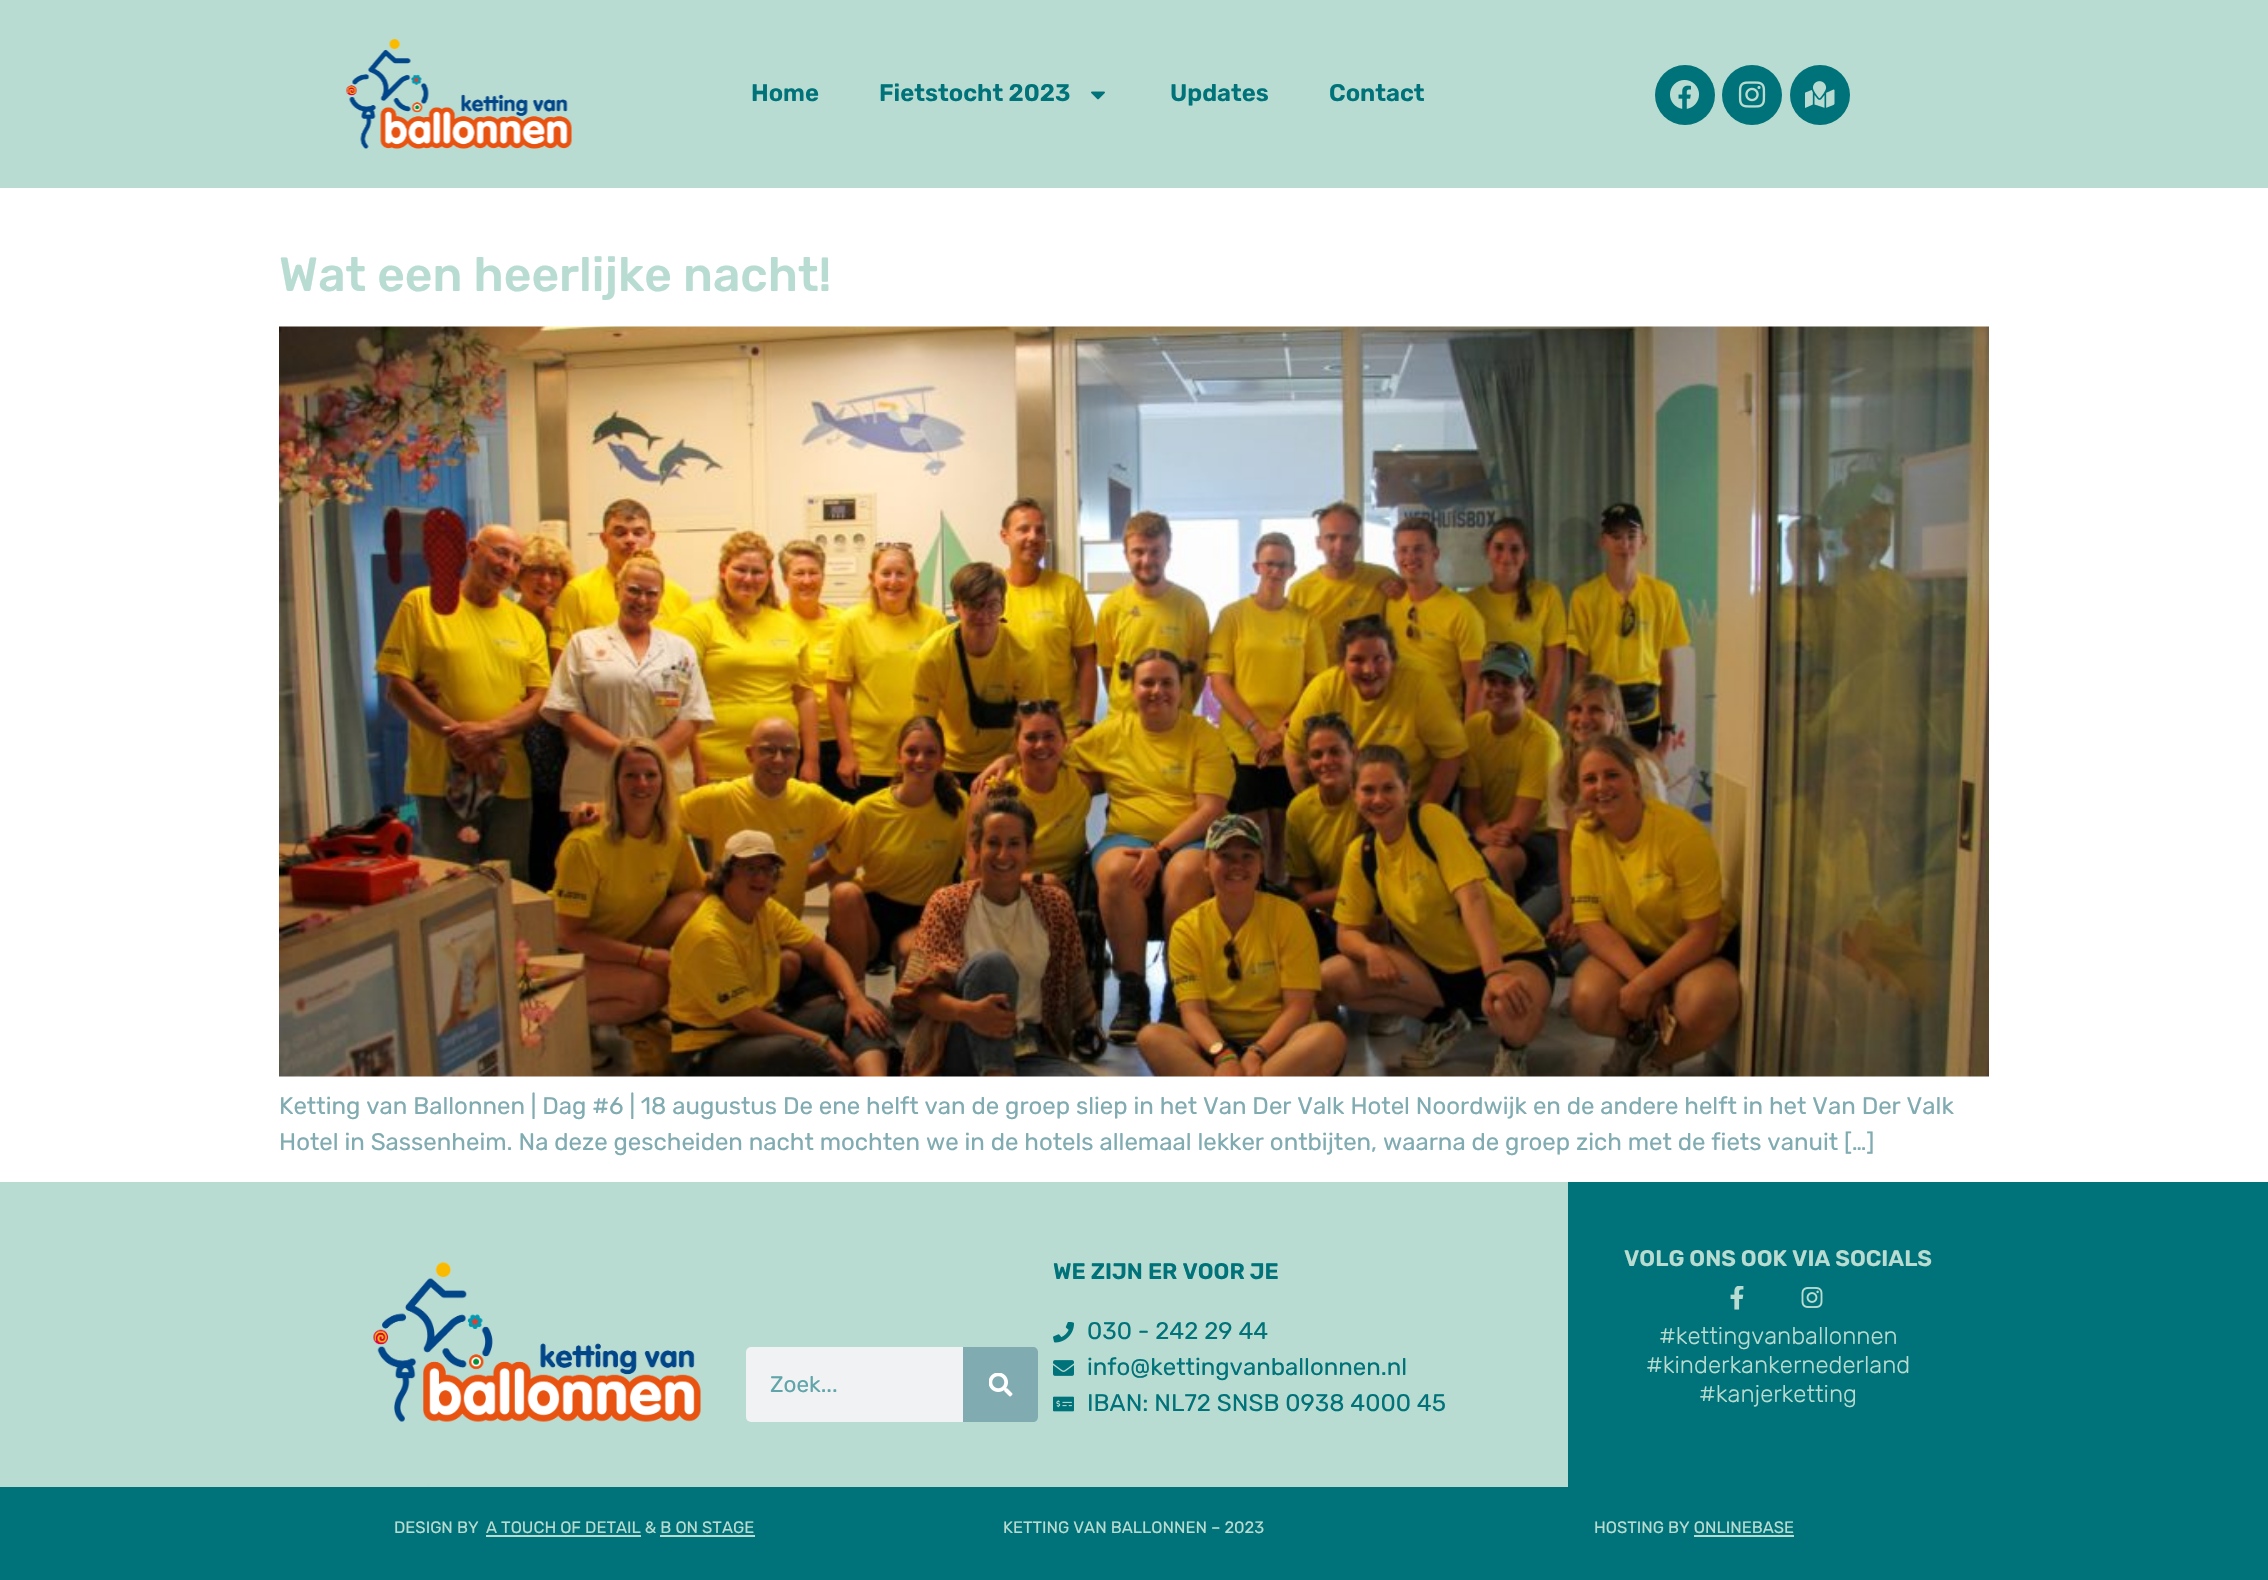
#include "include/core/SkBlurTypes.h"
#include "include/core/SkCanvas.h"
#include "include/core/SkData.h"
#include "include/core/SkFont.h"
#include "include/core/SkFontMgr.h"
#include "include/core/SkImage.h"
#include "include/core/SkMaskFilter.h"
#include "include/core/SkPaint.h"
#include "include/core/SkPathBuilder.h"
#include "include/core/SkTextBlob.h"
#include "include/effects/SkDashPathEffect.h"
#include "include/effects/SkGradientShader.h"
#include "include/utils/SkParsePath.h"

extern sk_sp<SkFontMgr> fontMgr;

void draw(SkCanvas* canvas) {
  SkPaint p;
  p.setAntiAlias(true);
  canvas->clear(SK_ColorWHITE);
  p.setColor(SkColorSetRGB(185, 220, 210));
  canvas->drawRect(SkRect::MakeLTRB(0, 0, 2268, 188), p);
  canvas->drawImageRect(SkImages::DeferredFromEncodedData(SkData::MakeFromFileName("images/1.png")), SkRect::MakeLTRB(346, 39, 572, 149), SkSamplingOptions());
  canvas->drawImageRect(SkImages::DeferredFromEncodedData(SkData::MakeFromFileName("images/2.png")), SkRect::MakeLTRB(1091, 91, 1105, 100), SkSamplingOptions());
  p.setColor(SkColorSetRGB(0, 114, 121));
  canvas->drawCircle(1685, 95, 30, p);
  canvas->drawImageRect(SkImages::DeferredFromEncodedData(SkData::MakeFromFileName("images/3.png")), SkRect::MakeLTRB(1670, 80, 1699, 109), SkSamplingOptions());
  canvas->drawCircle(1752, 95, 30, p);
  canvas->drawImageRect(SkImages::DeferredFromEncodedData(SkData::MakeFromFileName("images/4.png")), SkRect::MakeLTRB(1738, 81, 1766, 108), SkSamplingOptions());
  canvas->drawCircle(1820, 95, 30, p);
  canvas->drawImageRect(SkImages::DeferredFromEncodedData(SkData::MakeFromFileName("images/5.png")), SkRect::MakeLTRB(1805, 81, 1835, 108), SkSamplingOptions());
  canvas->drawImageRect(SkImages::DeferredFromEncodedData(SkData::MakeFromFileName("images/6.png")), SkRect::MakeLTRB(279, 326, 1989, 1077), SkSamplingOptions());
  {
    const SkColor colors[] = {SkColorSetRGB(185, 220, 210), SkColorSetRGB(0, 114, 121)};
    const float stops[] = {0.27f, 0.49f};
    const SkPoint ends[] = {{403, 710}, {1865, 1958}};
    p.setShader(SkGradientShader::MakeLinear(ends, colors, stops, 2, SkTileMode::kClamp));
    p.setAlpha(255);
  }
  canvas->drawRect(SkRect::MakeLTRB(0, 1182, 2268, 1487), p);
  p.setShader(nullptr);
  p.setColor(SkColorSetRGB(185, 220, 210));
  canvas->drawRect(SkRect::MakeLTRB(430, 1182, 1568, 1487), p);
  canvas->drawImageRect(SkImages::DeferredFromEncodedData(SkData::MakeFromFileName("images/7.png")), SkRect::MakeLTRB(373, 1262, 701, 1422), SkSamplingOptions());
  p.setColor(SkColorSetRGB(241, 242, 243));
  canvas->drawRoundRect(SkRect::MakeLTRB(746, 1347, 1038, 1422), 5, 5, p);
  p.setColor(SkColorSetRGB(128, 171, 177));
  canvas->drawPath(SkPathBuilder().moveTo(963, 1347).lineTo(1033, 1347).cubicTo(1036, 1347, 1038, 1349, 1038, 1352).lineTo(1038, 1417).cubicTo(1038, 1420, 1036, 1422, 1033, 1422).lineTo(963, 1422).close().detach(), p);
  canvas->drawImageRect(SkImages::DeferredFromEncodedData(SkData::MakeFromFileName("images/8.png")), SkRect::MakeLTRB(989, 1373, 1013, 1397), SkSamplingOptions());
  canvas->drawImageRect(SkImages::DeferredFromEncodedData(SkData::MakeFromFileName("images/9.png")), SkRect::MakeLTRB(1053, 1322, 1074, 1343), SkSamplingOptions());
  canvas->drawImageRect(SkImages::DeferredFromEncodedData(SkData::MakeFromFileName("images/10.png")), SkRect::MakeLTRB(1053, 1360, 1074, 1376), SkSamplingOptions());
  canvas->drawImageRect(SkImages::DeferredFromEncodedData(SkData::MakeFromFileName("images/11.png")), SkRect::MakeLTRB(1053, 1396, 1074, 1412), SkSamplingOptions());
  canvas->drawImageRect(SkImages::DeferredFromEncodedData(SkData::MakeFromFileName("images/12.png")), SkRect::MakeLTRB(1730, 1286, 1744, 1310), SkSamplingOptions());
  canvas->drawImageRect(SkImages::DeferredFromEncodedData(SkData::MakeFromFileName("images/13.png")), SkRect::MakeLTRB(1801, 1287, 1823, 1308), SkSamplingOptions());
  p.setColor(SkColorSetRGB(0, 114, 121));
  canvas->drawRect(SkRect::MakeLTRB(0, 1487, 2268, 1580), p);
  p.setColor(SkColorSetRGB(185, 220, 210));
  canvas->drawRect(SkRect::MakeLTRB(486, 1535, 641, 1537), p);
  canvas->drawRect(SkRect::MakeLTRB(660, 1535, 755, 1537), p);
  canvas->drawRect(SkRect::MakeLTRB(1694, 1535, 1794, 1537), p);
  SkFont font1(fontMgr->matchFamilyStyle("Rubik", SkFontStyle(600, SkFontStyle::kNormal_Width, SkFontStyle::kUpright_Slant)), 24);
  font1.setSubpixel(true);
  p.setColor(SkColorSetRGB(0, 114, 121));
  canvas->drawString("Home", 751, 101, font1, p);
  canvas->drawString("Fietstocht 2023", 879, 101, font1, p);
  canvas->drawString("Updates", 1170, 101, font1, p);
  canvas->drawString("Contact", 1329, 101, font1, p);
  SkFont font2(fontMgr->matchFamilyStyle("Rubik", SkFontStyle(500, SkFontStyle::kNormal_Width, SkFontStyle::kUpright_Slant)), 48);
  font2.setSubpixel(true);
  p.setColor(SkColorSetRGB(185, 220, 210));
  canvas->drawString("Wat een heerlijke nacht!", 279, 291, font2, p);
  SkFont font3(fontMgr->matchFamilyStyle("Rubik", SkFontStyle::Normal()), 24);
  font3.setSubpixel(true);
  p.setColor(SkColorSetRGB(128, 171, 177));
  canvas->drawString("Ketting van Ballonnen | Dag #6 | 18 augustus De ene helft van de groep sliep in het Van Der Valk Hotel Noordwijk en de andere helft in het Van Der Valk", 279, 1114, font3, p);
  canvas->drawString("Hotel in Sassenheim. Na deze gescheiden nacht mochten we in de hotels allemaal lekker ontbijten, waarna de groep zich met de fiets vanuit […]", 279, 1150, font3, p);
  SkFont font4(fontMgr->matchFamilyStyle("Rubik", SkFontStyle::Normal()), 22.5f);
  font4.setSubpixel(true);
  p.setColor(SkColorSetRGB(96, 165, 170));
  canvas->drawString("Zoek...", 770, 1392, font4, p);
  SkFont font5(fontMgr->matchFamilyStyle("Rubik", SkFontStyle(600, SkFontStyle::kNormal_Width, SkFontStyle::kUpright_Slant)), 22.5f);
  font5.setSubpixel(true);
  p.setColor(SkColorSetRGB(0, 114, 121));
  canvas->drawString("WE ZIJN ER VOOR JE", 1053, 1279, font5, p);
  canvas->drawString("030 - 242 29 44", 1087, 1339, font3, p);
  canvas->drawString("info@kettingvanballonnen.nl", 1087, 1375, font3, p);
  canvas->drawString("IBAN: NL72 SNSB 0938 4000 45", 1087, 1411, font3, p);
  p.setColor(SkColorSetRGB(185, 220, 210));
  canvas->drawString("VOLG ONS OOK VIA SOCIALS", 1624, 1266, font5, p);
  SkFont font6(fontMgr->matchFamilyStyle("Rubik", SkFontStyle(300, SkFontStyle::kNormal_Width, SkFontStyle::kUpright_Slant)), 24);
  font6.setSubpixel(true);
  canvas->drawString("#kettingvanballonnen", 1659, 1344, font6, p);
  canvas->drawString("#kinderkankernederland", 1646, 1373, font6, p);
  canvas->drawString("#kanjerketting", 1699, 1402, font6, p);
  SkFont font7(fontMgr->matchFamilyStyle("Rubik", SkFontStyle::Normal()), 16.5f);
  font7.setSubpixel(true);
  canvas->drawString("DESIGN BY", 394, 1533, font7, p);
  canvas->drawString("A TOUCH OF DETAIL & B ON STAGE", 486, 1533, font7, p);
  canvas->drawString("KETTING VAN BALLONNEN – 2023", 1003, 1533, font7, p);
  canvas->drawString("HOSTING BY ONLINEBASE", 1594, 1533, font7, p);
}
